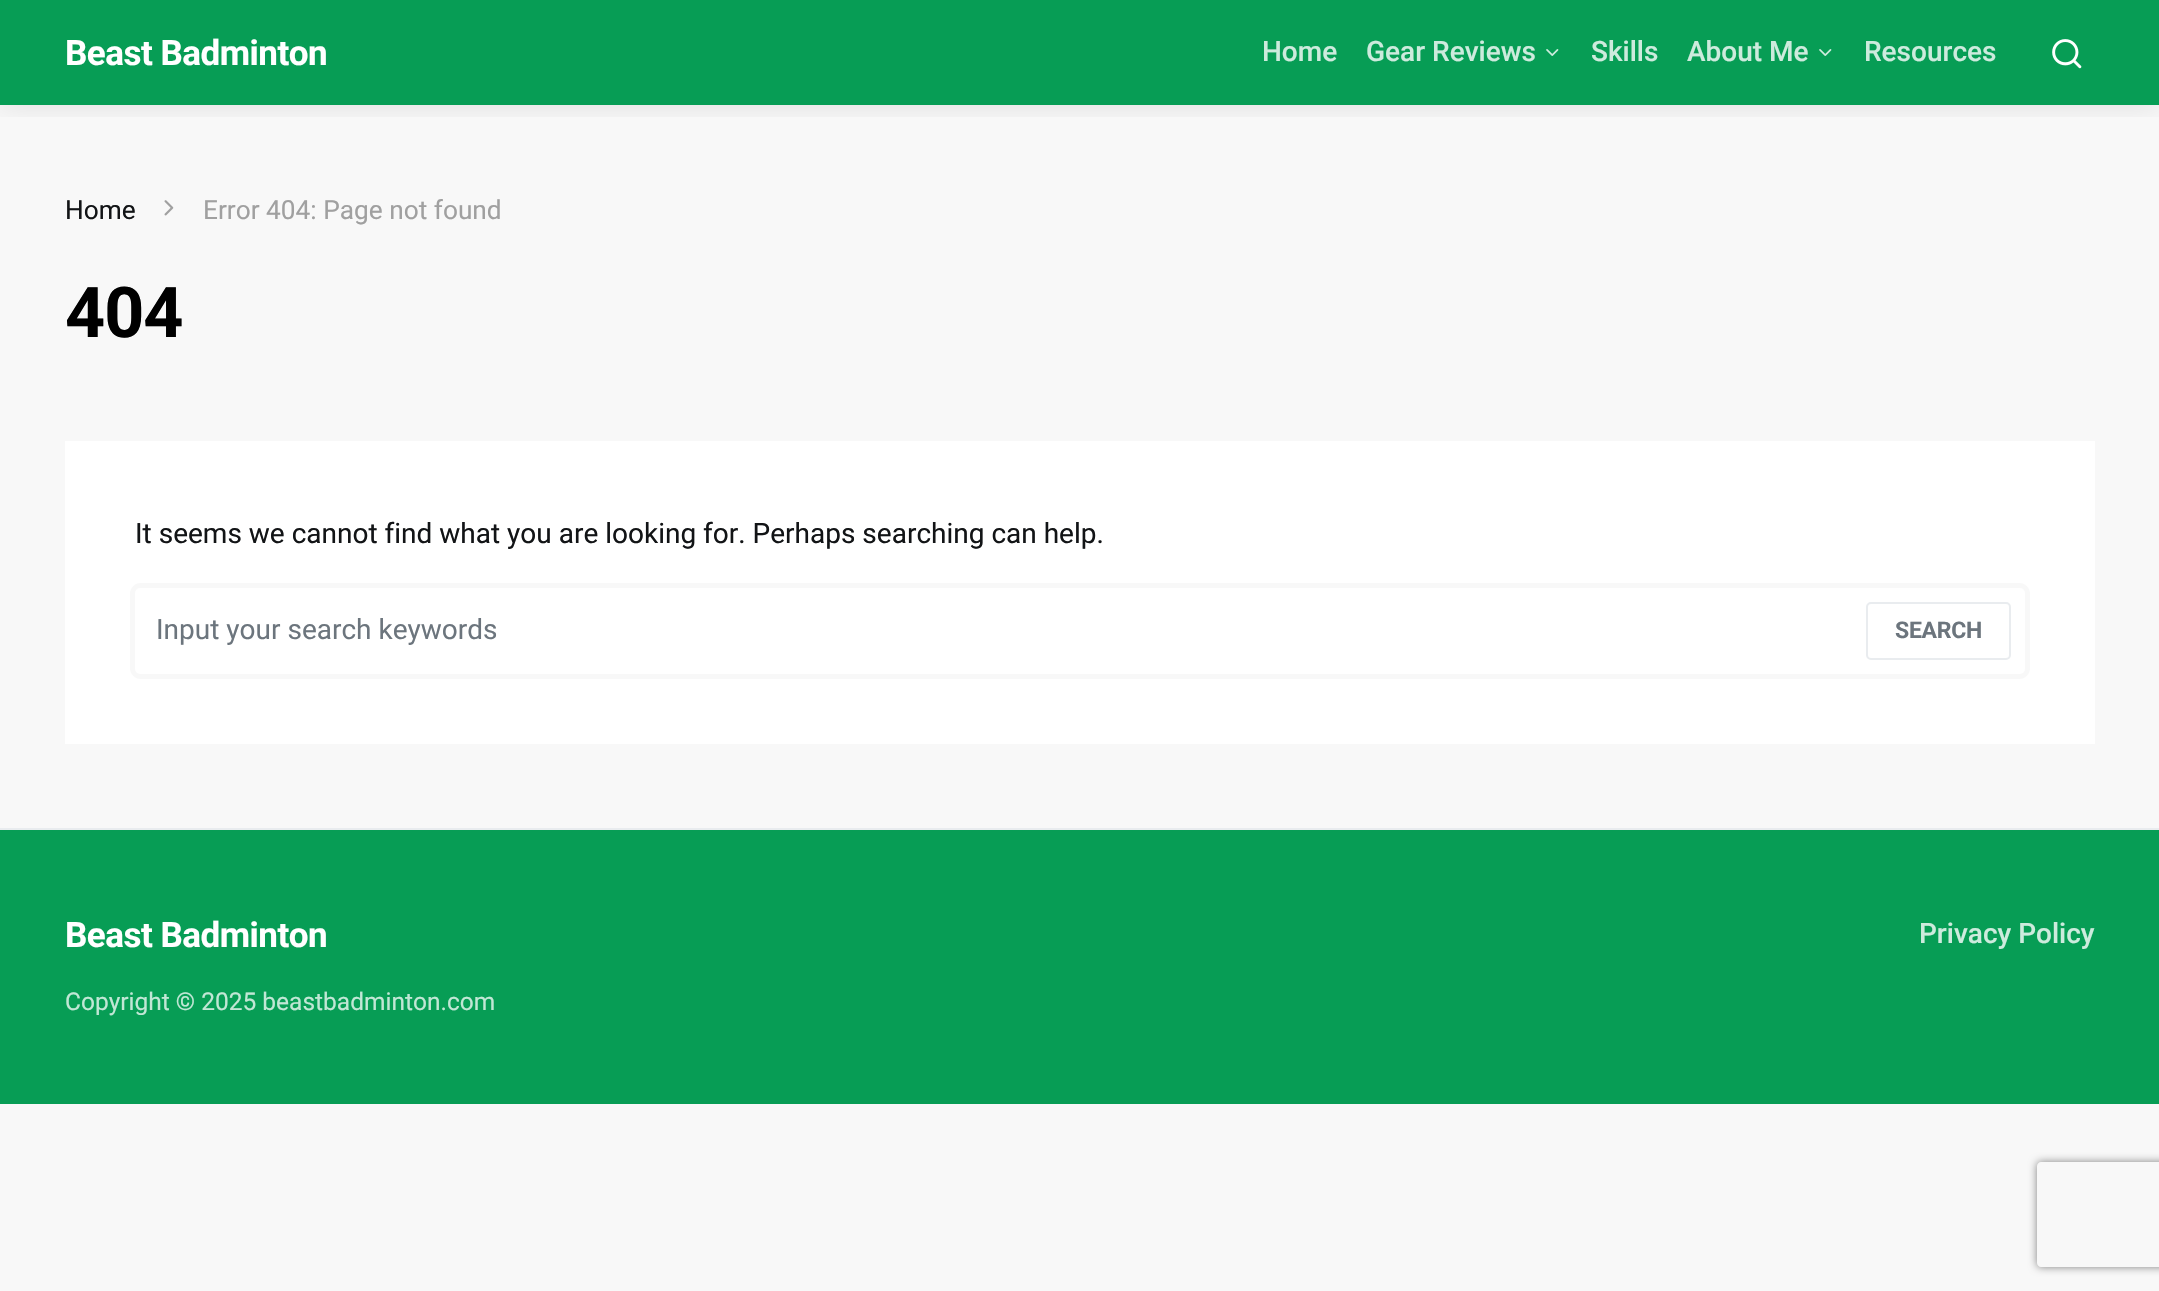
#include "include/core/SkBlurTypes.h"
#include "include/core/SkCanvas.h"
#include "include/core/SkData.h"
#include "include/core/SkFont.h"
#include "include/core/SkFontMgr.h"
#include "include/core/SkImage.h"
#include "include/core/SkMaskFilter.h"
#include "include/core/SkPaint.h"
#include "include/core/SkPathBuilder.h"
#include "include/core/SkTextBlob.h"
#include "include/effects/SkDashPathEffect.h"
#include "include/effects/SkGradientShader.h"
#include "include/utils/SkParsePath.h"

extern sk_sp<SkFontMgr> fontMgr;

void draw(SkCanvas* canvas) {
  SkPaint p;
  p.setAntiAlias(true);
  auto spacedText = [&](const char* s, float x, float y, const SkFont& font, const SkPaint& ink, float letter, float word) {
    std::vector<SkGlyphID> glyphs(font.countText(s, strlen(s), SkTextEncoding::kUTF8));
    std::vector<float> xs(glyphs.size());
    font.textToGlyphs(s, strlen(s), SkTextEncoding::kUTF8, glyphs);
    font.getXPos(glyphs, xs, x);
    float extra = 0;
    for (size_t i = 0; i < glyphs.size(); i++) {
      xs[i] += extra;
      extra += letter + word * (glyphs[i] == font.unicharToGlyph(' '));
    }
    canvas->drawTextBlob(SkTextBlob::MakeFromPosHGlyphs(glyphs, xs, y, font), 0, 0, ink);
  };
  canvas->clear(SkColorSetRGB(248, 248, 248));
  p.setColor(SkColorSetRGB(7, 157, 85));
  canvas->drawRect(SkRect::MakeLTRB(0, 0, 2159, 105), p);
  canvas->save();
  canvas->clipRect(SkRect::MakeLTRB(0, 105, 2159, 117));
  p.setColor(SkColorSetARGB(26, 0, 0, 0));
  p.setMaskFilter(SkMaskFilter::MakeBlur(kNormal_SkBlurStyle, 14));
  canvas->drawRect(SkRect::MakeLTRB(0, 0, 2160, 105), p);
  p.setMaskFilter(nullptr);
  canvas->restore();
  canvas->drawImageRect(SkImages::DeferredFromEncodedData(SkData::MakeFromFileName("images/1.png")), SkRect::MakeLTRB(1546, 49, 1559, 56), SkSamplingOptions());
  canvas->drawImageRect(SkImages::DeferredFromEncodedData(SkData::MakeFromFileName("images/1.png")), SkRect::MakeLTRB(1819, 49, 1832, 56), SkSamplingOptions());
  canvas->drawImageRect(SkImages::DeferredFromEncodedData(SkData::MakeFromFileName("images/2.png")), SkRect::MakeLTRB(2052, 39, 2082, 69), SkSamplingOptions());
  canvas->drawImageRect(SkImages::DeferredFromEncodedData(SkData::MakeFromFileName("images/3.png")), SkRect::MakeLTRB(164, 200, 174, 216), SkSamplingOptions());
  p.setColor(SK_ColorWHITE);
  canvas->drawRect(SkRect::MakeLTRB(65, 441, 2095, 744), p);
  p.setStyle(SkPaint::kStroke_Style);
  p.setStrokeWidth(6);
  p.setColor(SkColorSetRGB(248, 248, 248));
  canvas->drawRoundRect(SkRect::MakeLTRB(133, 586, 2027, 676), 8, 8, p);
  p.setStyle(SkPaint::kFill_Style);
  p.setColor(SK_ColorWHITE);
  canvas->drawRoundRect(SkRect::MakeLTRB(135, 588, 2025, 674), 5, 5, p);
  p.setStyle(SkPaint::kStroke_Style);
  p.setStrokeWidth(2);
  p.setColor(SkColorSetRGB(233, 236, 239));
  canvas->drawRoundRect(SkRect::MakeLTRB(1867, 603, 2010, 659), 4, 4, p);
  p.setStyle(SkPaint::kFill_Style);
  p.setColor(SkColorSetRGB(7, 157, 85));
  canvas->drawRect(SkRect::MakeLTRB(0, 830, 2159, 1104), p);
  p.setColor(SkColorSetRGB(233, 236, 239));
  canvas->drawRect(SkRect::MakeLTRB(0, 828, 2159, 830), p);
  canvas->save();
  canvas->clipPath(SkPathBuilder(SkPathFillType::kEvenOdd).moveTo(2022, 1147).lineTo(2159, 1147).lineTo(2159, 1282).lineTo(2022, 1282).close().moveTo(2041, 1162).lineTo(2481, 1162).cubicTo(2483, 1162, 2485, 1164, 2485, 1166).lineTo(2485, 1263).cubicTo(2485, 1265, 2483, 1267, 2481, 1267).lineTo(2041, 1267).cubicTo(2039, 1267, 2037, 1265, 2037, 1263).lineTo(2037, 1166).cubicTo(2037, 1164, 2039, 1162, 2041, 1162).close().detach(), true);
  p.setColor(SkColorSetRGB(128, 128, 128));
  p.setMaskFilter(SkMaskFilter::MakeBlur(kNormal_SkBlurStyle, 4.5f));
  canvas->drawRoundRect(SkRect::MakeLTRB(2037, 1162, 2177, 1267), 4, 4, p);
  p.setMaskFilter(nullptr);
  canvas->restore();
  SkFont font1(fontMgr->matchFamilyStyle("Roboto", SkFontStyle::Bold()), 35);
  font1.setSubpixel(true);
  p.setColor(SK_ColorWHITE);
  spacedText("Beast Badminton", 65, 65, font1, p, -0.5f, 0);
  SkFont font2(fontMgr->matchFamilyStyle("Roboto", SkFontStyle(500, SkFontStyle::kNormal_Width, SkFontStyle::kUpright_Slant)), 28);
  font2.setSubpixel(true);
  p.setColor(SkColorSetRGB(205, 235, 221));
  canvas->drawString("Home", 1262, 61, font2, p);
  canvas->drawString("Gear Reviews", 1366, 61, font2, p);
  canvas->drawString("Skills", 1591, 61, font2, p);
  canvas->drawString("About Me", 1687, 61, font2, p);
  canvas->drawString("Resources", 1864, 61, font2, p);
  SkFont font3(fontMgr->matchFamilyStyle("Roboto", SkFontStyle::Normal()), 26.25f);
  font3.setSubpixel(true);
  p.setColor(SkColorSetRGB(18, 20, 22));
  canvas->drawString("Home", 65, 219, font3, p);
  p.setColor(SkColorSetRGB(160, 160, 160));
  canvas->drawString("Error 404: Page not found", 203, 219, font3, p);
  SkFont font4(fontMgr->matchFamilyStyle("Roboto", SkFontStyle::Bold()), 70);
  font4.setSubpixel(true);
  p.setColor(SK_ColorBLACK);
  spacedText("404", 65, 337, font4, p, -1, 0);
  SkFont font5(fontMgr->matchFamilyStyle("Roboto", SkFontStyle::Normal()), 28);
  font5.setSubpixel(true);
  p.setColor(SkColorSetRGB(18, 20, 22));
  canvas->drawString("It seems we cannot find what you are looking for. Perhaps searching can help.", 135, 543, font5, p);
  p.setColor(SkColorSetRGB(108, 117, 125));
  canvas->drawString("Input your search keywords", 156, 639, font5, p);
  SkFont font6(fontMgr->matchFamilyStyle("Roboto", SkFontStyle::Bold()), 23);
  font6.setSubpixel(true);
  spacedText("SEARCH", 1895, 638, font6, p, -0.25f, 0);
  p.setColor(SK_ColorWHITE);
  spacedText("Beast Badminton", 65, 947, font1, p, -0.5f, 0);
  SkFont font7(fontMgr->matchFamilyStyle("Roboto", SkFontStyle::Normal()), 24.5f);
  font7.setSubpixel(true);
  p.setColor(SkColorSetRGB(193, 231, 213));
  canvas->drawString("Copyright © 2025 beastbadminton.com", 65, 1010, font7, p);
  p.setColor(SkColorSetRGB(205, 235, 221));
  canvas->drawString("Privacy Policy", 1919, 943, font2, p);
}
